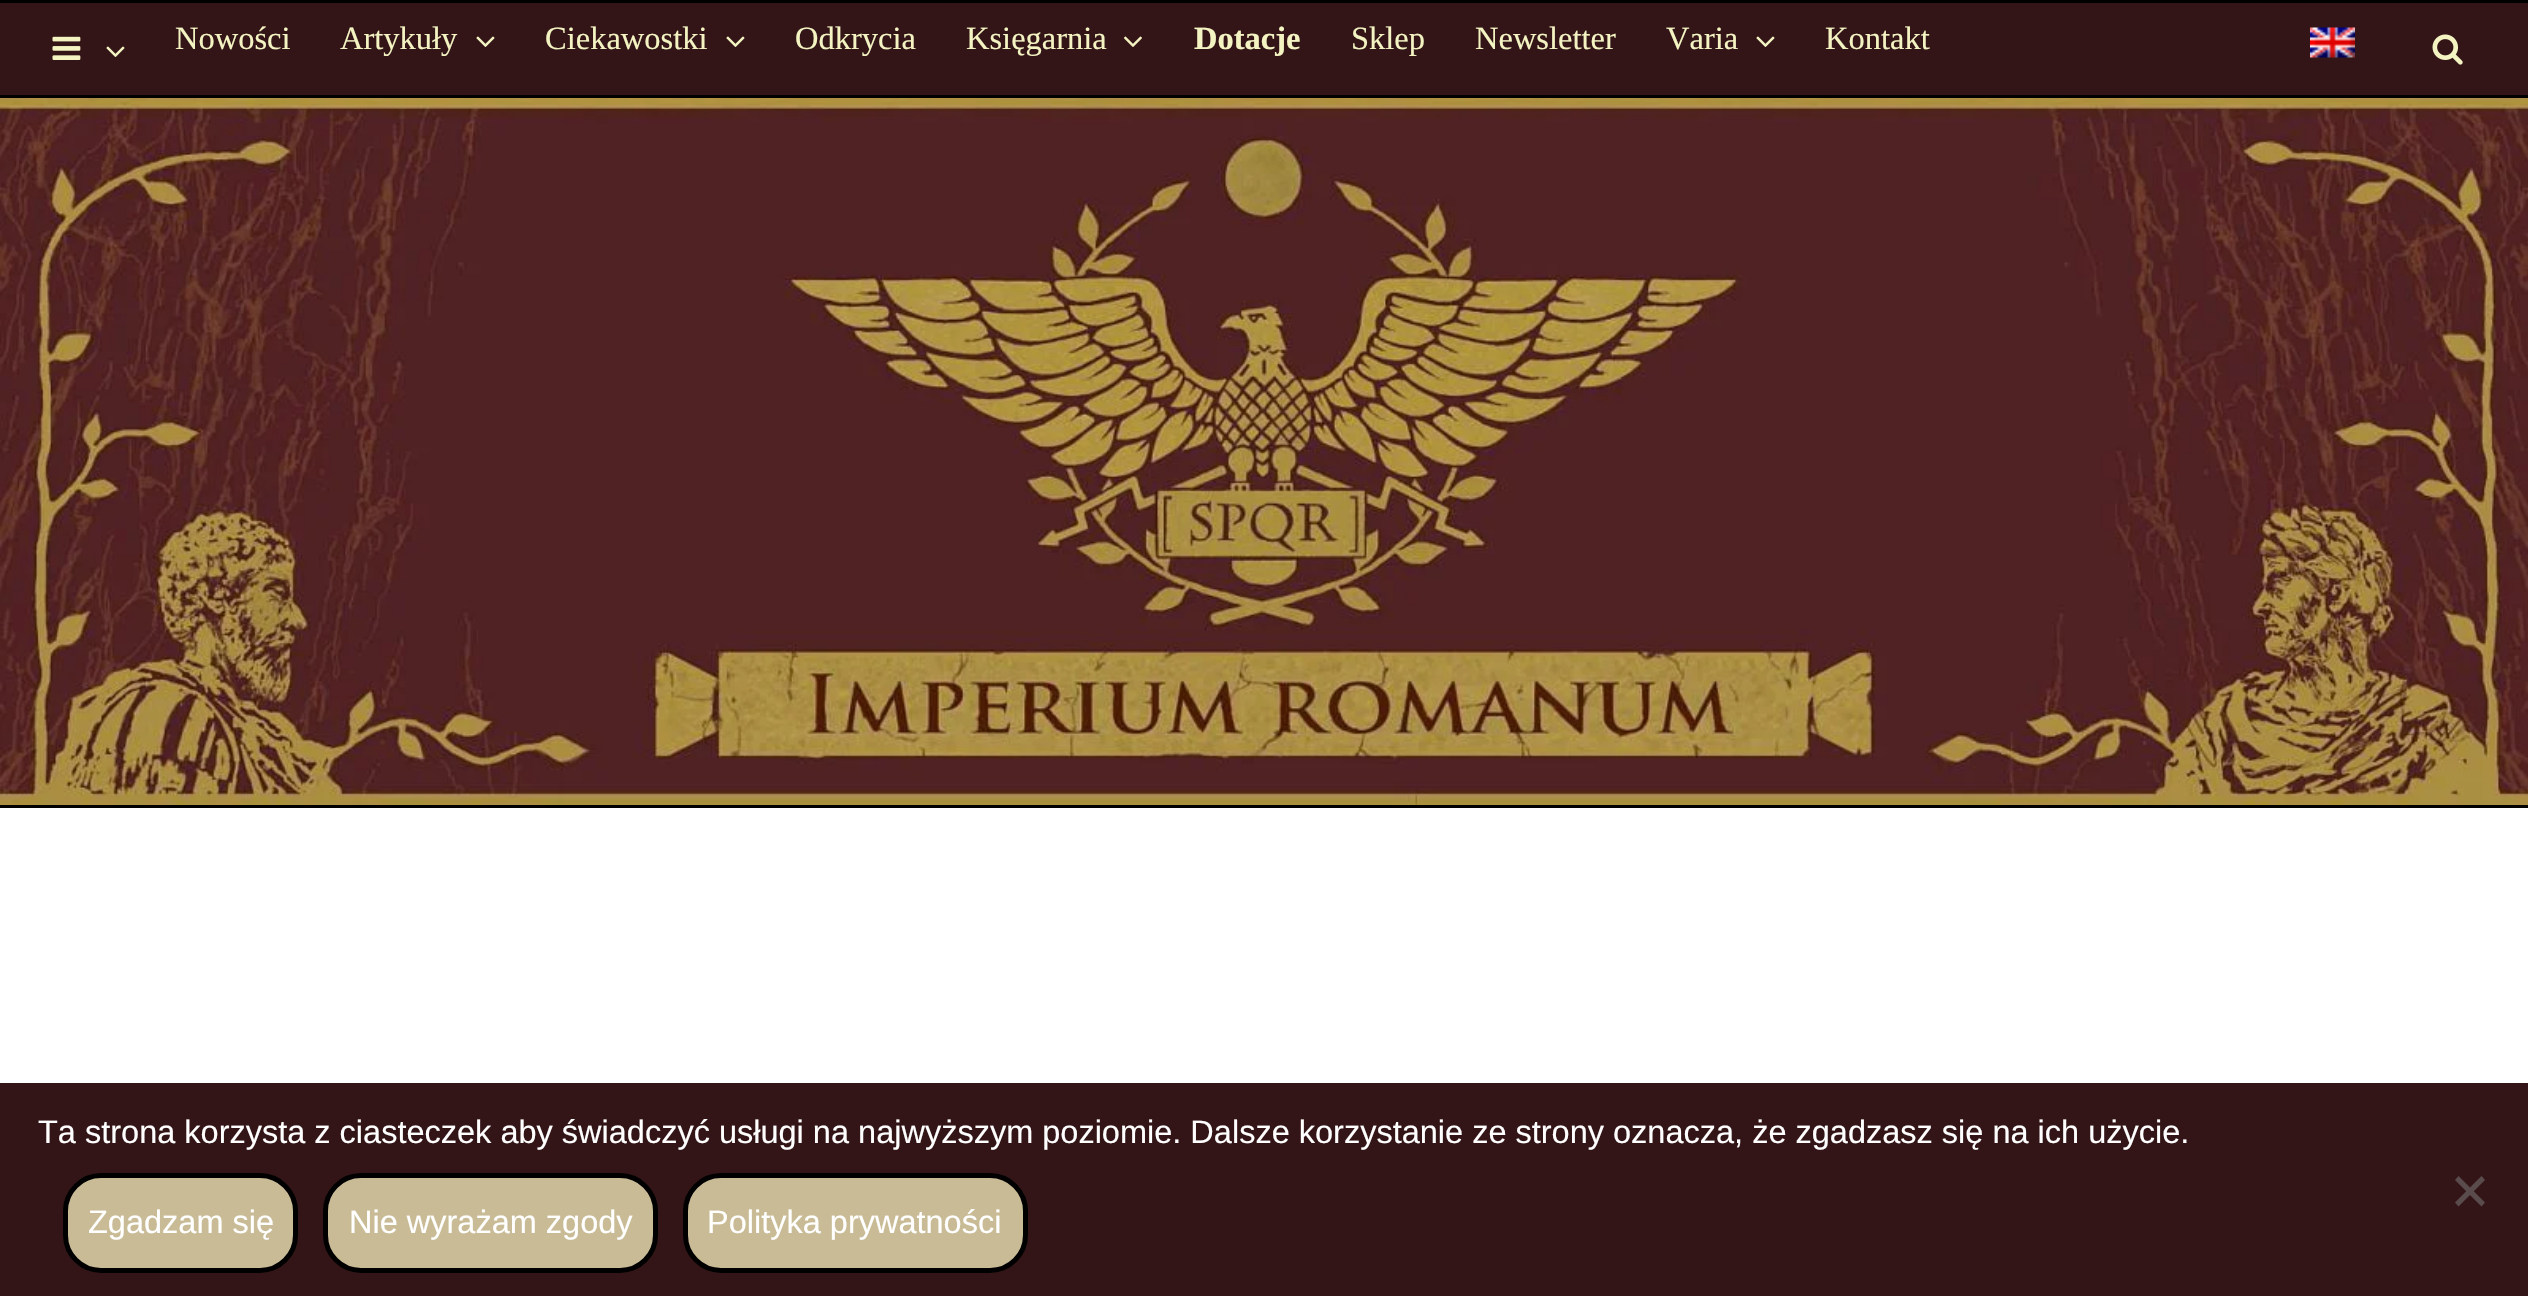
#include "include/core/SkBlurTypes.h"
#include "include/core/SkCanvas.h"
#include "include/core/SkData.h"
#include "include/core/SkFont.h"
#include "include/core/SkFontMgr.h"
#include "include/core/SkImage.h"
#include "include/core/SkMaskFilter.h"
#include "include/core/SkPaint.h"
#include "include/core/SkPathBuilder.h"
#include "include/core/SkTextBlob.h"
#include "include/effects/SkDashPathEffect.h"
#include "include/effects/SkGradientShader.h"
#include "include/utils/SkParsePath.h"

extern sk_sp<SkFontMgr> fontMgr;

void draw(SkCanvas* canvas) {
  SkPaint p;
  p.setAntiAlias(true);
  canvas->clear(SK_ColorWHITE);
  p.setColor(SK_ColorBLACK);
  canvas->drawRect(SkRect::MakeLTRB(0, 805, 2528, 808), p);
  p.setColor(SkColorSetRGB(51, 21, 23));
  canvas->drawRect(SkRect::MakeLTRB(0, 3, 2528, 95), p);
  p.setColor(SK_ColorBLACK);
  canvas->drawRect(SkRect::MakeLTRB(0, 0, 2528, 3), p);
  canvas->drawRect(SkRect::MakeLTRB(0, 95, 2528, 98), p);
  canvas->drawImageRect(SkImages::DeferredFromEncodedData(SkData::MakeFromFileName("images/1.png")), SkRect::MakeLTRB(52, 36, 81, 60), SkSamplingOptions());
  canvas->drawImageRect(SkImages::DeferredFromEncodedData(SkData::MakeFromFileName("images/2.png")), SkRect::MakeLTRB(106, 46, 125, 57), SkSamplingOptions());
  canvas->drawImageRect(SkImages::DeferredFromEncodedData(SkData::MakeFromFileName("images/2.png")), SkRect::MakeLTRB(476, 36, 495, 47), SkSamplingOptions());
  canvas->drawImageRect(SkImages::DeferredFromEncodedData(SkData::MakeFromFileName("images/2.png")), SkRect::MakeLTRB(726, 36, 745, 47), SkSamplingOptions());
  canvas->drawImageRect(SkImages::DeferredFromEncodedData(SkData::MakeFromFileName("images/3.png")), SkRect::MakeLTRB(1124, 36, 1142, 47), SkSamplingOptions());
  canvas->drawImageRect(SkImages::DeferredFromEncodedData(SkData::MakeFromFileName("images/2.png")), SkRect::MakeLTRB(1756, 36, 1775, 47), SkSamplingOptions());
  canvas->drawImageRect(SkImages::DeferredFromEncodedData(SkData::MakeFromFileName("images/4.png")), SkRect::MakeLTRB(2310, 27, 2355, 58), SkSamplingOptions());
  canvas->drawImageRect(SkImages::DeferredFromEncodedData(SkData::MakeFromFileName("images/5.png")), SkRect::MakeLTRB(2432, 34, 2463, 65), SkSamplingOptions());
  canvas->drawImageRect(SkImages::DeferredFromEncodedData(SkData::MakeFromFileName("images/6.png")), SkRect::MakeLTRB(0, 98, 2528, 805), SkSamplingOptions());
  p.setColor(SkColorSetRGB(51, 21, 23));
  canvas->drawRect(SkRect::MakeLTRB(0, 1083, 2528, 1296), p);
  p.setColor(SkColorSetRGB(90, 75, 76));
  canvas->drawPath(SkPathBuilder().moveTo(2481.5f, 1176).lineTo(2485, 1180).lineTo(2458.5f, 1206.5f).lineTo(2455, 1202.5f).close().detach(), p);
  canvas->drawPath(SkPathBuilder().moveTo(2455, 1180).lineTo(2458.5f, 1176).lineTo(2485, 1202.5f).lineTo(2481.5f, 1206.5f).close().detach(), p);
  p.setColor(SkColorSetRGB(200, 187, 149));
  canvas->drawRoundRect(SkRect::MakeLTRB(65.5f, 1175.5f, 295.5f, 1270.5f), 35.5f, 35.5f, p);
  p.setStyle(SkPaint::kStroke_Style);
  p.setStrokeWidth(5);
  p.setColor(SK_ColorBLACK);
  canvas->drawRoundRect(SkRect::MakeLTRB(65.5f, 1175.5f, 295.5f, 1270.5f), 35.5f, 35.5f, p);
  p.setStyle(SkPaint::kFill_Style);
  p.setColor(SkColorSetRGB(200, 187, 149));
  canvas->drawRoundRect(SkRect::MakeLTRB(325.5f, 1175.5f, 655.5f, 1270.5f), 35.5f, 35.5f, p);
  p.setStyle(SkPaint::kStroke_Style);
  p.setColor(SK_ColorBLACK);
  canvas->drawRoundRect(SkRect::MakeLTRB(325.5f, 1175.5f, 655.5f, 1270.5f), 35.5f, 35.5f, p);
  p.setStyle(SkPaint::kFill_Style);
  p.setColor(SkColorSetRGB(200, 187, 149));
  canvas->drawRoundRect(SkRect::MakeLTRB(685.5f, 1175.5f, 1025.5f, 1270.5f), 35.5f, 35.5f, p);
  p.setStyle(SkPaint::kStroke_Style);
  p.setColor(SK_ColorBLACK);
  canvas->drawRoundRect(SkRect::MakeLTRB(685.5f, 1175.5f, 1025.5f, 1270.5f), 35.5f, 35.5f, p);
  SkFont font1(fontMgr->matchFamilyStyle("Liberation Serif", SkFontStyle::Normal()), 32.5f);
  font1.setSubpixel(true);
  p.setStyle(SkPaint::kFill_Style);
  p.setColor(SkColorSetRGB(244, 244, 195));
  canvas->drawString("Nowości", 175, 49, font1, p);
  canvas->drawString("Artykuły", 340, 49, font1, p);
  canvas->drawString("Ciekawostki", 545, 49, font1, p);
  canvas->drawString("Odkrycia", 795, 49, font1, p);
  canvas->drawString("Księgarnia", 966, 49, font1, p);
  SkFont font2(fontMgr->matchFamilyStyle("Liberation Serif", SkFontStyle::Bold()), 32.5f);
  font2.setSubpixel(true);
  canvas->drawString("Dotacje", 1194, 49, font2, p);
  canvas->drawString("Sklep", 1351, 49, font1, p);
  canvas->drawString("Newsletter", 1475, 49, font1, p);
  canvas->drawString("Varia", 1666, 49, font1, p);
  canvas->drawString("Kontakt", 1825, 49, font1, p);
  SkFont font3(fontMgr->matchFamilyStyle("Liberation Sans", SkFontStyle::Normal()), 32.5f);
  font3.setSubpixel(true);
  p.setColor(SK_ColorWHITE);
  canvas->drawString("Ta strona korzysta z ciasteczek aby świadczyć usługi na najwyższym poziomie. Dalsze korzystanie ze strony oznacza, że zgadzasz się na ich użycie.", 38, 1143, font3, p);
  canvas->drawString("Zgadzam się", 88, 1233, font3, p);
  canvas->drawString("Nie wyrażam zgody", 349, 1233, font3, p);
  canvas->drawString("Polityka prywatności", 707, 1233, font3, p);
}
